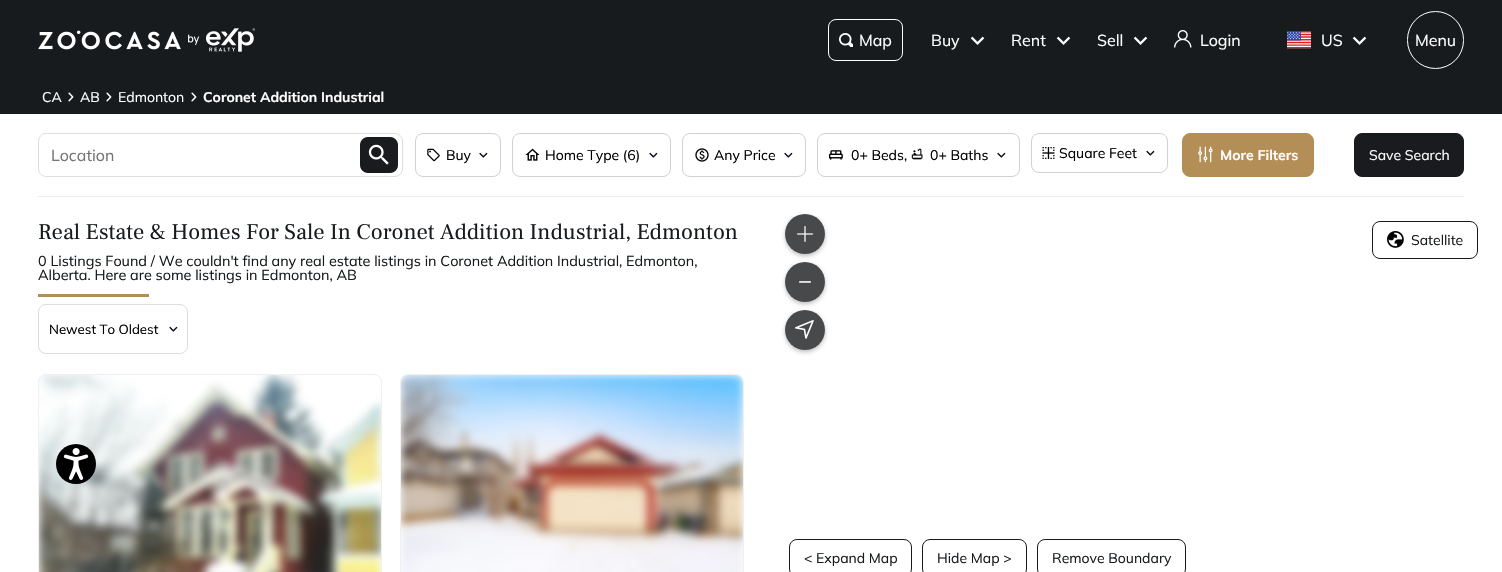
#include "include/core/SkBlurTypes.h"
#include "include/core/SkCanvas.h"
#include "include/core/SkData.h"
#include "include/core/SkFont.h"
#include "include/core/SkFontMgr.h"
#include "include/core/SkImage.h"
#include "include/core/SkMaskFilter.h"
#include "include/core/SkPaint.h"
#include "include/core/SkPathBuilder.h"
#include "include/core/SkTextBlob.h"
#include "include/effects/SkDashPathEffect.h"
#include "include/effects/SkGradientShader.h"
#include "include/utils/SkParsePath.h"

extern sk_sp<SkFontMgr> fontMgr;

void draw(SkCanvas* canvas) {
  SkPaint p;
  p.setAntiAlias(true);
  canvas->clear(SkColorSetRGB(24, 27, 30));
  canvas->drawImageRect(SkImages::DeferredFromEncodedData(SkData::MakeFromFileName("images/1.png")), SkRect::MakeLTRB(38, 28, 255, 52), SkSamplingOptions());
  p.setStyle(SkPaint::kStroke_Style);
  p.setStrokeWidth(1);
  p.setColor(SK_ColorWHITE);
  canvas->drawRoundRect(SkRect::MakeLTRB(828.5f, 19.5f, 902.5f, 60.5f), 7.5f, 7.5f, p);
  canvas->drawImageRect(SkImages::DeferredFromEncodedData(SkData::MakeFromFileName("images/2.png")), SkRect::MakeLTRB(839, 33, 853, 47), SkSamplingOptions());
  canvas->drawImageRect(SkImages::DeferredFromEncodedData(SkData::MakeFromFileName("images/3.png")), SkRect::MakeLTRB(970, 36, 985, 45), SkSamplingOptions());
  canvas->drawImageRect(SkImages::DeferredFromEncodedData(SkData::MakeFromFileName("images/3.png")), SkRect::MakeLTRB(1056, 36, 1071, 45), SkSamplingOptions());
  canvas->drawImageRect(SkImages::DeferredFromEncodedData(SkData::MakeFromFileName("images/3.png")), SkRect::MakeLTRB(1133, 36, 1148, 45), SkSamplingOptions());
  canvas->drawImageRect(SkImages::DeferredFromEncodedData(SkData::MakeFromFileName("images/4.png")), SkRect::MakeLTRB(1174, 30, 1192, 48), SkSamplingOptions());
  canvas->drawImageRect(SkImages::DeferredFromEncodedData(SkData::MakeFromFileName("images/5.png")), SkRect::MakeLTRB(1287, 31, 1311, 49), SkSamplingOptions());
  canvas->drawImageRect(SkImages::DeferredFromEncodedData(SkData::MakeFromFileName("images/3.png")), SkRect::MakeLTRB(1352, 36, 1367, 45), SkSamplingOptions());
  canvas->drawRoundRect(SkRect::MakeLTRB(1407.5f, 11.5f, 1463.5f, 68.5f), 28, 28, p);
  p.setStyle(SkPaint::kFill_Style);
  canvas->drawRect(SkRect::MakeLTRB(0, 114, 1502, 572), p);
  canvas->drawImageRect(SkImages::DeferredFromEncodedData(SkData::MakeFromFileName("images/6.png")), SkRect::MakeLTRB(68, 92, 74, 102), SkSamplingOptions());
  canvas->drawImageRect(SkImages::DeferredFromEncodedData(SkData::MakeFromFileName("images/6.png")), SkRect::MakeLTRB(106, 92, 112, 102), SkSamplingOptions());
  canvas->drawImageRect(SkImages::DeferredFromEncodedData(SkData::MakeFromFileName("images/6.png")), SkRect::MakeLTRB(191, 92, 197, 102), SkSamplingOptions());
  p.setColor(SkColorSetRGB(236, 236, 236));
  canvas->drawRect(SkRect::MakeLTRB(38, 196, 1464, 197), p);
  p.setStyle(SkPaint::kStroke_Style);
  p.setColor(SkColorSetRGB(222, 222, 222));
  canvas->drawRoundRect(SkRect::MakeLTRB(38.5f, 133.5f, 402.5f, 176.5f), 7.5f, 7.5f, p);
  canvas->drawImageRect(SkImages::DeferredFromEncodedData(SkData::MakeFromFileName("images/7.png")), SkRect::MakeLTRB(360, 137, 398, 173), SkSamplingOptions());
  p.setColor(SkColorSetRGB(209, 209, 210));
  canvas->drawRoundRect(SkRect::MakeLTRB(415.5f, 133.5f, 500.5f, 176.5f), 7.5f, 7.5f, p);
  canvas->drawImageRect(SkImages::DeferredFromEncodedData(SkData::MakeFromFileName("images/8.png")), SkRect::MakeLTRB(427, 148, 440, 162), SkSamplingOptions());
  canvas->drawImageRect(SkImages::DeferredFromEncodedData(SkData::MakeFromFileName("images/9.png")), SkRect::MakeLTRB(479, 152, 488, 158), SkSamplingOptions());
  canvas->drawRoundRect(SkRect::MakeLTRB(512.5f, 133.5f, 670.5f, 176.5f), 7.5f, 7.5f, p);
  canvas->drawImageRect(SkImages::DeferredFromEncodedData(SkData::MakeFromFileName("images/10.png")), SkRect::MakeLTRB(525, 148, 540, 161), SkSamplingOptions());
  canvas->drawImageRect(SkImages::DeferredFromEncodedData(SkData::MakeFromFileName("images/9.png")), SkRect::MakeLTRB(649, 152, 658, 158), SkSamplingOptions());
  canvas->drawRoundRect(SkRect::MakeLTRB(682.5f, 133.5f, 805.5f, 176.5f), 7.5f, 7.5f, p);
  canvas->drawImageRect(SkImages::DeferredFromEncodedData(SkData::MakeFromFileName("images/11.png")), SkRect::MakeLTRB(695, 148, 709, 162), SkSamplingOptions());
  canvas->drawImageRect(SkImages::DeferredFromEncodedData(SkData::MakeFromFileName("images/9.png")), SkRect::MakeLTRB(784, 152, 793, 158), SkSamplingOptions());
  canvas->drawRoundRect(SkRect::MakeLTRB(817.5f, 133.5f, 1019.5f, 176.5f), 7.5f, 7.5f, p);
  canvas->drawImageRect(SkImages::DeferredFromEncodedData(SkData::MakeFromFileName("images/12.png")), SkRect::MakeLTRB(829, 150, 843, 160), SkSamplingOptions());
  canvas->drawImageRect(SkImages::DeferredFromEncodedData(SkData::MakeFromFileName("images/13.png")), SkRect::MakeLTRB(911, 148, 923, 160), SkSamplingOptions());
  canvas->drawImageRect(SkImages::DeferredFromEncodedData(SkData::MakeFromFileName("images/9.png")), SkRect::MakeLTRB(997, 152, 1006, 158), SkSamplingOptions());
  canvas->drawRoundRect(SkRect::MakeLTRB(1031.5f, 133.5f, 1167.5f, 172.5f), 7.5f, 7.5f, p);
  canvas->drawImageRect(SkImages::DeferredFromEncodedData(SkData::MakeFromFileName("images/14.png")), SkRect::MakeLTRB(1042, 147, 1055, 159), SkSamplingOptions());
  canvas->drawImageRect(SkImages::DeferredFromEncodedData(SkData::MakeFromFileName("images/9.png")), SkRect::MakeLTRB(1146, 150, 1155, 156), SkSamplingOptions());
  p.setStyle(SkPaint::kFill_Style);
  p.setColor(SkColorSetRGB(179, 142, 87));
  canvas->drawRoundRect(SkRect::MakeLTRB(1182.5f, 133.5f, 1313.5f, 176.5f), 7.5f, 7.5f, p);
  p.setStyle(SkPaint::kStroke_Style);
  canvas->drawRoundRect(SkRect::MakeLTRB(1182.5f, 133.5f, 1313.5f, 176.5f), 7.5f, 7.5f, p);
  canvas->drawImageRect(SkImages::DeferredFromEncodedData(SkData::MakeFromFileName("images/15.png")), SkRect::MakeLTRB(1198, 146, 1213, 163), SkSamplingOptions());
  p.setStyle(SkPaint::kFill_Style);
  p.setColor(SkColorSetRGB(25, 27, 30));
  canvas->drawRoundRect(SkRect::MakeLTRB(1354.5f, 133.5f, 1463.5f, 176.5f), 7.5f, 7.5f, p);
  p.setStyle(SkPaint::kStroke_Style);
  p.setColor(SkColorSetRGB(24, 27, 30));
  canvas->drawRoundRect(SkRect::MakeLTRB(1354.5f, 133.5f, 1463.5f, 176.5f), 7.5f, 7.5f, p);
  p.setStyle(SkPaint::kFill_Style);
  p.setColor(SkColorSetRGB(179, 142, 87));
  canvas->drawRect(SkRect::MakeLTRB(38, 294, 149, 297), p);
  p.setStyle(SkPaint::kStroke_Style);
  p.setColor(SkColorSetRGB(222, 222, 222));
  canvas->drawRoundRect(SkRect::MakeLTRB(38.5f, 304.5f, 187.5f, 353.5f), 7.5f, 7.5f, p);
  canvas->drawImageRect(SkImages::DeferredFromEncodedData(SkData::MakeFromFileName("images/16.png")), SkRect::MakeLTRB(169, 326, 178, 332), SkSamplingOptions());
  p.setColor(SkColorSetRGB(239, 239, 239));
  canvas->drawRoundRect(SkRect::MakeLTRB(38.5f, 374.5f, 381.5f, 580.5f), 7.5f, 7.5f, p);
  canvas->drawImageRect(SkImages::DeferredFromEncodedData(SkData::MakeFromFileName("images/17.png")), SkRect::MakeLTRB(39, 375, 381, 572), SkSamplingOptions());
  canvas->drawRoundRect(SkRect::MakeLTRB(400.5f, 374.5f, 743.5f, 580.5f), 7.5f, 7.5f, p);
  canvas->drawImageRect(SkImages::DeferredFromEncodedData(SkData::MakeFromFileName("images/18.png")), SkRect::MakeLTRB(401, 375, 743, 572), SkSamplingOptions());
  canvas->save();
  canvas->clipPath(SkPathBuilder(SkPathFillType::kEvenOdd).moveTo(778, 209).lineTo(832, 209).lineTo(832, 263).lineTo(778, 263).close().moveTo(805, 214).cubicTo(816, 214, 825, 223, 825, 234).cubicTo(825, 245, 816, 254, 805, 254).cubicTo(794, 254, 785, 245, 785, 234).cubicTo(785, 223, 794, 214, 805, 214).close().detach(), true);
  p.setStyle(SkPaint::kFill_Style);
  p.setColor(SkColorSetARGB(64, 0, 0, 0));
  p.setMaskFilter(SkMaskFilter::MakeBlur(kNormal_SkBlurStyle, 2));
  canvas->drawRoundRect(SkRect::MakeLTRB(785, 216, 825, 256), 20, 20, p);
  p.setMaskFilter(nullptr);
  canvas->restore();
  p.setColor(SkColorSetARGB(204, 25, 27, 30));
  canvas->drawCircle(805, 234, 20, p);
  canvas->drawImageRect(SkImages::DeferredFromEncodedData(SkData::MakeFromFileName("images/19.png")), SkRect::MakeLTRB(797, 226, 813, 242), SkSamplingOptions());
  canvas->save();
  canvas->clipPath(SkPathBuilder(SkPathFillType::kEvenOdd).moveTo(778, 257).lineTo(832, 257).lineTo(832, 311).lineTo(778, 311).close().moveTo(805, 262).cubicTo(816, 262, 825, 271, 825, 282).cubicTo(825, 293, 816, 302, 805, 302).cubicTo(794, 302, 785, 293, 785, 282).cubicTo(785, 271, 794, 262, 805, 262).close().detach(), true);
  p.setColor(SkColorSetARGB(64, 0, 0, 0));
  p.setMaskFilter(SkMaskFilter::MakeBlur(kNormal_SkBlurStyle, 2));
  canvas->drawRoundRect(SkRect::MakeLTRB(785, 264, 825, 304), 20, 20, p);
  p.setMaskFilter(nullptr);
  canvas->restore();
  p.setColor(SkColorSetARGB(204, 25, 27, 30));
  canvas->drawCircle(805, 282, 20, p);
  canvas->drawImageRect(SkImages::DeferredFromEncodedData(SkData::MakeFromFileName("images/20.png")), SkRect::MakeLTRB(799, 281, 811, 283), SkSamplingOptions());
  canvas->save();
  canvas->clipPath(SkPathBuilder(SkPathFillType::kEvenOdd).moveTo(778, 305).lineTo(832, 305).lineTo(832, 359).lineTo(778, 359).close().moveTo(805, 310).cubicTo(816, 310, 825, 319, 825, 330).cubicTo(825, 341, 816, 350, 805, 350).cubicTo(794, 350, 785, 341, 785, 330).cubicTo(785, 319, 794, 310, 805, 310).close().detach(), true);
  p.setColor(SkColorSetARGB(64, 0, 0, 0));
  p.setMaskFilter(SkMaskFilter::MakeBlur(kNormal_SkBlurStyle, 2));
  canvas->drawRoundRect(SkRect::MakeLTRB(785, 312, 825, 352), 20, 20, p);
  p.setMaskFilter(nullptr);
  canvas->restore();
  p.setColor(SkColorSetARGB(204, 25, 27, 30));
  canvas->drawCircle(805, 330, 20, p);
  canvas->drawImageRect(SkImages::DeferredFromEncodedData(SkData::MakeFromFileName("images/21.png")), SkRect::MakeLTRB(795, 320, 814, 339), SkSamplingOptions());
  p.setStyle(SkPaint::kStroke_Style);
  p.setColor(SkColorSetRGB(24, 27, 30));
  canvas->drawRoundRect(SkRect::MakeLTRB(1372.5f, 221.5f, 1477.5f, 258.5f), 7.5f, 7.5f, p);
  canvas->drawImageRect(SkImages::DeferredFromEncodedData(SkData::MakeFromFileName("images/22.png")), SkRect::MakeLTRB(1387, 231, 1404, 248), SkSamplingOptions());
  canvas->drawRoundRect(SkRect::MakeLTRB(789.5f, 539.5f, 911.5f, 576.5f), 7.5f, 7.5f, p);
  canvas->drawRoundRect(SkRect::MakeLTRB(922.5f, 539.5f, 1026.5f, 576.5f), 7.5f, 7.5f, p);
  canvas->drawRoundRect(SkRect::MakeLTRB(1037.5f, 539.5f, 1185.5f, 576.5f), 7.5f, 7.5f, p);
  p.setStyle(SkPaint::kFill_Style);
  p.setColor(SK_ColorBLACK);
  canvas->drawCircle(76, 464, 20, p);
  canvas->drawImageRect(SkImages::DeferredFromEncodedData(SkData::MakeFromFileName("images/23.png")), SkRect::MakeLTRB(63, 448, 89, 480), SkSamplingOptions());
  SkFont font1(fontMgr->matchFamilyStyle("Mulish", SkFontStyle(200, SkFontStyle::kNormal_Width, SkFontStyle::kUpright_Slant)), 16);
  font1.setSubpixel(true);
  p.setColor(SK_ColorWHITE);
  canvas->drawString("Map", 859, 46, font1, p);
  canvas->drawString("Buy", 931, 46, font1, p);
  canvas->drawString("Rent", 1011, 46, font1, p);
  canvas->drawString("Sell", 1097, 46, font1, p);
  canvas->drawString("Login", 1200, 46, font1, p);
  canvas->drawString("US", 1321, 46, font1, p);
  canvas->drawString("Menu", 1415, 46, font1, p);
  SkFont font2(fontMgr->matchFamilyStyle("Mulish", SkFontStyle(200, SkFontStyle::kNormal_Width, SkFontStyle::kUpright_Slant)), 14);
  font2.setSubpixel(true);
  canvas->drawString("CA", 42, 102, font2, p);
  canvas->drawString("AB", 80, 102, font2, p);
  canvas->drawString("Edmonton", 118, 102, font2, p);
  SkFont font3(fontMgr->matchFamilyStyle("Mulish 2", SkFontStyle(200, SkFontStyle::kNormal_Width, SkFontStyle::kUpright_Slant)), 14);
  font3.setSubpixel(true);
  canvas->drawString("Coronet Addition Industrial", 203, 102, font3, p);
  p.setColor(SkColorSetRGB(117, 117, 117));
  canvas->drawString("Location", 51, 161, font1, p);
  p.setColor(SK_ColorBLACK);
  canvas->drawString("Buy", 446, 160, font2, p);
  canvas->drawString("Home Type (6)", 545, 160, font2, p);
  canvas->drawString("Any Price", 714, 160, font2, p);
  canvas->drawString("0+ Beds,", 851, 160, font2, p);
  canvas->drawString("0+ Baths", 930, 160, font2, p);
  canvas->drawString("Square Feet", 1059, 158, font2, p);
  p.setColor(SK_ColorWHITE);
  canvas->drawString("More Filters", 1220, 160, font3, p);
  canvas->drawString("Save Search", 1369, 160, font2, p);
  SkFont font4(fontMgr->matchFamilyStyle("Frank Ruhl Libre", SkFontStyle::Normal()), 22.4f);
  font4.setSubpixel(true);
  p.setColor(SkColorSetRGB(24, 27, 30));
  canvas->drawString("Real Estate & Homes For Sale In Coronet Addition Industrial, Edmonton", 38, 239, font4, p);
  SkFont font5(fontMgr->matchFamilyStyle("Mulish", SkFontStyle(200, SkFontStyle::kNormal_Width, SkFontStyle::kUpright_Slant)), 14.4f);
  font5.setSubpixel(true);
  canvas->drawString("0 Listings Found / We couldn't find any real estate listings in Coronet Addition Industrial, Edmonton,", 38, 266, font5, p);
  canvas->drawString("Alberta. Here are some listings in Edmonton, AB", 38, 280, font5, p);
  SkFont font6(fontMgr->matchFamilyStyle("Mulish", SkFontStyle(200, SkFontStyle::kNormal_Width, SkFontStyle::kUpright_Slant)), 13.25f);
  font6.setSubpixel(true);
  p.setColor(SK_ColorBLACK);
  canvas->drawString("Newest To Oldest", 49, 334, font6, p);
  p.setColor(SkColorSetRGB(24, 27, 30));
  canvas->drawString("Satellite", 1411, 245, font2, p);
  canvas->drawString("< Expand Map", 804, 563, font2, p);
  canvas->drawString("Hide Map >", 937, 563, font2, p);
  canvas->drawString("Remove Boundary", 1052, 563, font2, p);
}
